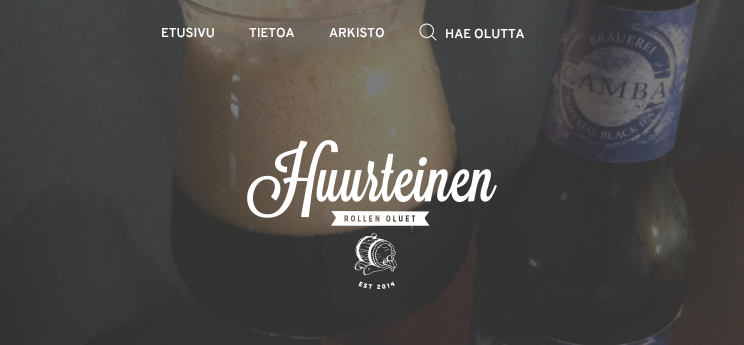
#include "include/core/SkBlurTypes.h"
#include "include/core/SkCanvas.h"
#include "include/core/SkData.h"
#include "include/core/SkFont.h"
#include "include/core/SkFontMgr.h"
#include "include/core/SkImage.h"
#include "include/core/SkMaskFilter.h"
#include "include/core/SkPaint.h"
#include "include/core/SkPathBuilder.h"
#include "include/core/SkTextBlob.h"
#include "include/effects/SkDashPathEffect.h"
#include "include/effects/SkGradientShader.h"
#include "include/utils/SkParsePath.h"

extern sk_sp<SkFontMgr> fontMgr;

void draw(SkCanvas* canvas) {
  SkPaint p;
  p.setAntiAlias(true);
  canvas->clear(SK_ColorWHITE);
  canvas->drawImageRect(SkImages::DeferredFromEncodedData(SkData::MakeFromFileName("images/1.png")), SkRect::MakeLTRB(0, 0, 744, 345), SkSamplingOptions());
  canvas->drawImageRect(SkImages::DeferredFromEncodedData(SkData::MakeFromFileName("images/2.png")), SkRect::MakeLTRB(247, 140, 497, 289), SkSamplingOptions());
  canvas->drawImageRect(SkImages::DeferredFromEncodedData(SkData::MakeFromFileName("images/3.png")), SkRect::MakeLTRB(419, 23, 437, 41), SkSamplingOptions());
  SkFont font1(fontMgr->matchFamilyStyle("Overpass", SkFontStyle::Normal()), 13);
  font1.setSubpixel(true);
  p.setColor(SK_ColorWHITE);
  canvas->drawString("ETUSIVU", 161, 37, font1, p);
  canvas->drawString("TIETOA", 249, 37, font1, p);
  canvas->drawString("ARKISTO", 329, 37, font1, p);
  canvas->drawString("HAE OLUTTA", 445, 38, font1, p);
}
